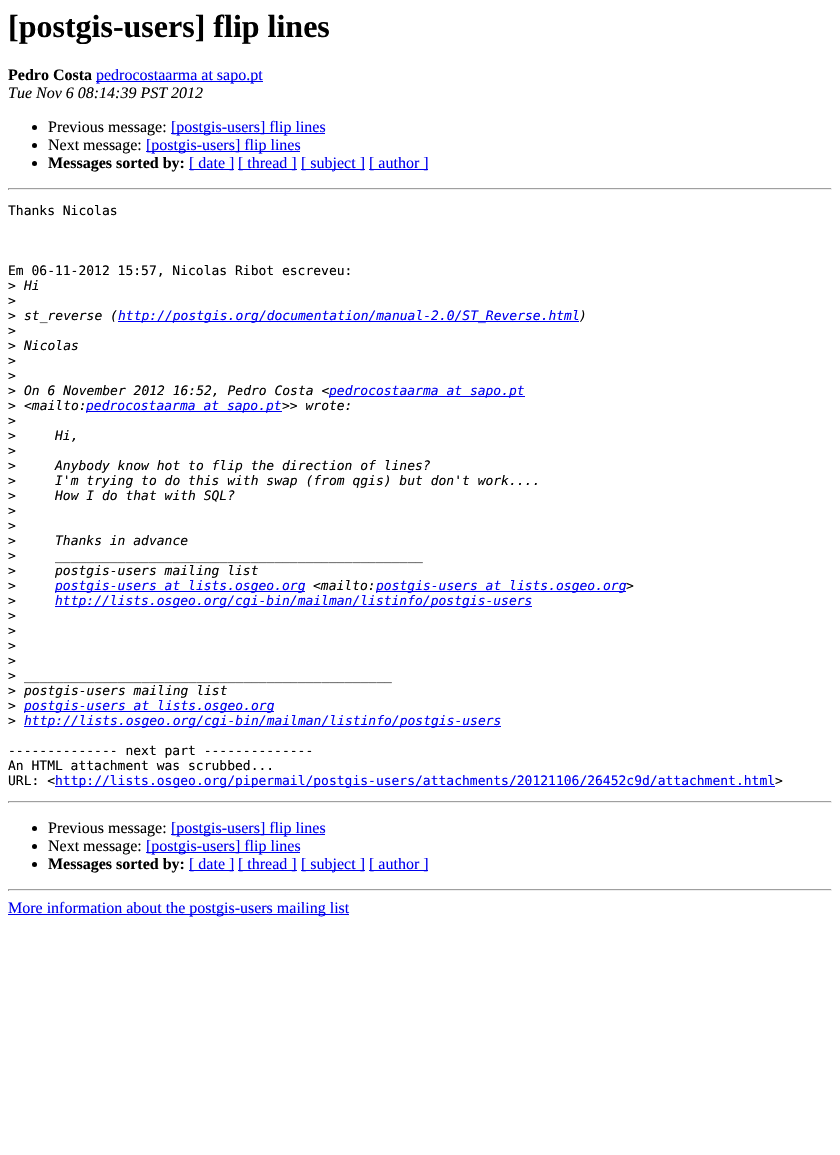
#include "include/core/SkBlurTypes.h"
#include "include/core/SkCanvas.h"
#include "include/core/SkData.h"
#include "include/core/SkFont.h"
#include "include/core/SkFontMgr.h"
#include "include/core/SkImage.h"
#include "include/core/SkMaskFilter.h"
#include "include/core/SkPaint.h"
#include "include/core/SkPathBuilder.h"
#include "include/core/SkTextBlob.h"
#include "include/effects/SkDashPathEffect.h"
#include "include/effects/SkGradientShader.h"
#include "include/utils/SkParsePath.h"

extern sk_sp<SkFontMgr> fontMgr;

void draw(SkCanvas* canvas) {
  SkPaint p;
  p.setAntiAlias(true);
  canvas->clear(SK_ColorWHITE);
  p.setColor(SkColorSetRGB(0, 0, 238));
  canvas->drawRect(SkRect::MakeLTRB(96, 81, 263, 82), p);
  p.setColor(SK_ColorBLACK);
  canvas->drawCircle(34.5f, 127.5f, 2.5f, p);
  p.setColor(SkColorSetRGB(0, 0, 238));
  canvas->drawRect(SkRect::MakeLTRB(171, 133, 325, 134), p);
  p.setColor(SK_ColorBLACK);
  canvas->drawCircle(34.5f, 145.5f, 2.5f, p);
  p.setColor(SkColorSetRGB(0, 0, 238));
  canvas->drawRect(SkRect::MakeLTRB(146, 151, 300, 152), p);
  p.setColor(SK_ColorBLACK);
  canvas->drawCircle(34.5f, 163.5f, 2.5f, p);
  p.setColor(SkColorSetRGB(0, 0, 238));
  canvas->drawRect(SkRect::MakeLTRB(189, 169, 234, 170), p);
  canvas->drawRect(SkRect::MakeLTRB(238, 169, 297, 170), p);
  canvas->drawRect(SkRect::MakeLTRB(301, 169, 365, 170), p);
  canvas->drawRect(SkRect::MakeLTRB(369, 169, 428, 170), p);
  p.setColor(SkColorSetRGB(159, 159, 159));
  canvas->drawRect(SkRect::MakeLTRB(8, 188, 832, 189), p);
  p.setColor(SkColorSetRGB(238, 238, 238));
  canvas->drawRect(SkRect::MakeLTRB(831, 188, 832, 190), p);
  canvas->drawRect(SkRect::MakeLTRB(8, 189, 832, 190), p);
  p.setColor(SkColorSetRGB(159, 159, 159));
  canvas->drawRect(SkRect::MakeLTRB(8, 188, 9, 190), p);
  p.setColor(SkColorSetRGB(0, 0, 238));
  canvas->drawRect(SkRect::MakeLTRB(118, 321, 579, 322), p);
  canvas->drawRect(SkRect::MakeLTRB(329, 396, 525, 397), p);
  canvas->drawRect(SkRect::MakeLTRB(86, 411, 282, 412), p);
  canvas->drawRect(SkRect::MakeLTRB(55, 591, 305, 592), p);
  canvas->drawRect(SkRect::MakeLTRB(376, 591, 626, 592), p);
  canvas->drawRect(SkRect::MakeLTRB(55, 606, 532, 607), p);
  canvas->drawRect(SkRect::MakeLTRB(24, 711, 274, 712), p);
  canvas->drawRect(SkRect::MakeLTRB(24, 726, 501, 727), p);
  canvas->drawRect(SkRect::MakeLTRB(55, 786, 775, 787), p);
  p.setColor(SkColorSetRGB(159, 159, 159));
  canvas->drawRect(SkRect::MakeLTRB(8, 801, 832, 802), p);
  p.setColor(SkColorSetRGB(238, 238, 238));
  canvas->drawRect(SkRect::MakeLTRB(831, 801, 832, 803), p);
  canvas->drawRect(SkRect::MakeLTRB(8, 802, 832, 803), p);
  p.setColor(SkColorSetRGB(159, 159, 159));
  canvas->drawRect(SkRect::MakeLTRB(8, 801, 9, 803), p);
  p.setColor(SK_ColorBLACK);
  canvas->drawCircle(34.5f, 828.5f, 2.5f, p);
  p.setColor(SkColorSetRGB(0, 0, 238));
  canvas->drawRect(SkRect::MakeLTRB(171, 834, 325, 835), p);
  p.setColor(SK_ColorBLACK);
  canvas->drawCircle(34.5f, 846.5f, 2.5f, p);
  p.setColor(SkColorSetRGB(0, 0, 238));
  canvas->drawRect(SkRect::MakeLTRB(146, 852, 300, 853), p);
  p.setColor(SK_ColorBLACK);
  canvas->drawCircle(34.5f, 864.5f, 2.5f, p);
  p.setColor(SkColorSetRGB(0, 0, 238));
  canvas->drawRect(SkRect::MakeLTRB(189, 870, 234, 871), p);
  canvas->drawRect(SkRect::MakeLTRB(238, 870, 297, 871), p);
  canvas->drawRect(SkRect::MakeLTRB(301, 870, 365, 871), p);
  canvas->drawRect(SkRect::MakeLTRB(369, 870, 428, 871), p);
  p.setColor(SkColorSetRGB(159, 159, 159));
  canvas->drawRect(SkRect::MakeLTRB(8, 889, 832, 890), p);
  p.setColor(SkColorSetRGB(238, 238, 238));
  canvas->drawRect(SkRect::MakeLTRB(831, 889, 832, 891), p);
  canvas->drawRect(SkRect::MakeLTRB(8, 890, 832, 891), p);
  p.setColor(SkColorSetRGB(159, 159, 159));
  canvas->drawRect(SkRect::MakeLTRB(8, 889, 9, 891), p);
  p.setColor(SkColorSetRGB(0, 0, 238));
  canvas->drawRect(SkRect::MakeLTRB(8, 914, 349, 915), p);
  SkFont font1(fontMgr->matchFamilyStyle("Liberation Serif", SkFontStyle::Bold()), 32);
  font1.setSubpixel(true);
  p.setColor(SK_ColorBLACK);
  canvas->drawString("[postgis-users] flip lines", 8, 37, font1, p);
  SkFont font2(fontMgr->matchFamilyStyle("Liberation Serif", SkFontStyle::Bold()), 16);
  font2.setSubpixel(true);
  canvas->drawString("Pedro Costa", 8, 80, font2, p);
  SkFont font3(fontMgr->matchFamilyStyle("Liberation Serif", SkFontStyle::Normal()), 16);
  font3.setSubpixel(true);
  p.setColor(SkColorSetRGB(0, 0, 238));
  canvas->drawString("pedrocostaarma at sapo.pt", 96, 80, font3, p);
  SkFont font4(fontMgr->matchFamilyStyle("Liberation Serif", SkFontStyle::Italic()), 16);
  font4.setSubpixel(true);
  p.setColor(SK_ColorBLACK);
  canvas->drawString("Tue Nov 6 08:14:39 PST 2012", 8, 98, font4, p);
  canvas->drawString("Previous message:", 48, 132, font3, p);
  p.setColor(SkColorSetRGB(0, 0, 238));
  canvas->drawString("[postgis-users] flip lines", 171, 132, font3, p);
  p.setColor(SK_ColorBLACK);
  canvas->drawString("Next message:", 48, 150, font3, p);
  p.setColor(SkColorSetRGB(0, 0, 238));
  canvas->drawString("[postgis-users] flip lines", 146, 150, font3, p);
  p.setColor(SK_ColorBLACK);
  canvas->drawString("Messages sorted by:", 48, 168, font2, p);
  p.setColor(SkColorSetRGB(0, 0, 238));
  canvas->drawString("[ date ]", 189, 168, font3, p);
  canvas->drawString("[ thread ]", 238, 168, font3, p);
  canvas->drawString("[ subject ]", 301, 168, font3, p);
  canvas->drawString("[ author ]", 369, 168, font3, p);
  SkFont font5(fontMgr->matchFamilyStyle("DejaVu Sans Mono", SkFontStyle::Normal()), 13);
  font5.setSubpixel(true);
  p.setColor(SK_ColorBLACK);
  canvas->drawString("Thanks Nicolas", 8, 215, font5, p);
  canvas->drawString("Em 06-11-2012 15:57, Nicolas Ribot escreveu:", 8, 275, font5, p);
  canvas->drawString(">", 8, 290, font5, p);
  SkFont font6(fontMgr->matchFamilyStyle("DejaVu Sans Mono", SkFontStyle::Italic()), 13);
  font6.setSubpixel(true);
  canvas->drawString("Hi", 24, 290, font6, p);
  canvas->drawString(">", 8, 305, font5, p);
  canvas->drawString(">", 8, 320, font5, p);
  canvas->drawString("st_reverse (", 24, 320, font6, p);
  p.setColor(SkColorSetRGB(0, 0, 238));
  canvas->drawString("http://postgis.org/documentation/manual-2.0/ST_Reverse.html", 118, 320, font6, p);
  p.setColor(SK_ColorBLACK);
  canvas->drawString(")", 579, 320, font6, p);
  canvas->drawString(">", 8, 335, font5, p);
  canvas->drawString(">", 8, 350, font5, p);
  canvas->drawString("Nicolas", 24, 350, font6, p);
  canvas->drawString(">", 8, 365, font5, p);
  canvas->drawString(">", 8, 380, font5, p);
  canvas->drawString(">", 8, 395, font5, p);
  canvas->drawString("On 6 November 2012 16:52, Pedro Costa <", 24, 395, font6, p);
  p.setColor(SkColorSetRGB(0, 0, 238));
  canvas->drawString("pedrocostaarma at sapo.pt", 329, 395, font6, p);
  p.setColor(SK_ColorBLACK);
  canvas->drawString(">", 8, 410, font5, p);
  canvas->drawString("<mailto:", 24, 410, font6, p);
  p.setColor(SkColorSetRGB(0, 0, 238));
  canvas->drawString("pedrocostaarma at sapo.pt", 86, 410, font6, p);
  p.setColor(SK_ColorBLACK);
  canvas->drawString(">> wrote:", 282, 410, font6, p);
  canvas->drawString(">", 8, 425, font5, p);
  canvas->drawString(">", 8, 440, font5, p);
  canvas->drawString("Hi,", 55, 440, font6, p);
  canvas->drawString(">", 8, 455, font5, p);
  canvas->drawString(">", 8, 470, font5, p);
  canvas->drawString("Anybody know hot to flip the direction of lines?", 55, 470, font6, p);
  canvas->drawString(">", 8, 485, font5, p);
  canvas->drawString("I'm trying to do this with swap (from qgis) but don't work....", 55, 485, font6, p);
  canvas->drawString(">", 8, 500, font5, p);
  canvas->drawString("How I do that with SQL?", 55, 500, font6, p);
  canvas->drawString(">", 8, 515, font5, p);
  canvas->drawString(">", 8, 530, font5, p);
  canvas->drawString(">", 8, 545, font5, p);
  canvas->drawString("Thanks in advance", 55, 545, font6, p);
  canvas->drawString(">", 8, 560, font5, p);
  canvas->drawString("_______________________________________________", 55, 560, font6, p);
  canvas->drawString(">", 8, 575, font5, p);
  canvas->drawString("postgis-users mailing list", 55, 575, font6, p);
  canvas->drawString(">", 8, 590, font5, p);
  p.setColor(SkColorSetRGB(0, 0, 238));
  canvas->drawString("postgis-users at lists.osgeo.org", 55, 590, font6, p);
  p.setColor(SK_ColorBLACK);
  canvas->drawString("<mailto:", 313, 590, font6, p);
  p.setColor(SkColorSetRGB(0, 0, 238));
  canvas->drawString("postgis-users at lists.osgeo.org", 376, 590, font6, p);
  p.setColor(SK_ColorBLACK);
  canvas->drawString(">", 626, 590, font6, p);
  canvas->drawString(">", 8, 605, font5, p);
  p.setColor(SkColorSetRGB(0, 0, 238));
  canvas->drawString("http://lists.osgeo.org/cgi-bin/mailman/listinfo/postgis-users", 55, 605, font6, p);
  p.setColor(SK_ColorBLACK);
  canvas->drawString(">", 8, 620, font5, p);
  canvas->drawString(">", 8, 635, font5, p);
  canvas->drawString(">", 8, 650, font5, p);
  canvas->drawString(">", 8, 665, font5, p);
  canvas->drawString(">", 8, 680, font5, p);
  canvas->drawString("_______________________________________________", 24, 680, font6, p);
  canvas->drawString(">", 8, 695, font5, p);
  canvas->drawString("postgis-users mailing list", 24, 695, font6, p);
  canvas->drawString(">", 8, 710, font5, p);
  p.setColor(SkColorSetRGB(0, 0, 238));
  canvas->drawString("postgis-users at lists.osgeo.org", 24, 710, font6, p);
  p.setColor(SK_ColorBLACK);
  canvas->drawString(">", 8, 725, font5, p);
  p.setColor(SkColorSetRGB(0, 0, 238));
  canvas->drawString("http://lists.osgeo.org/cgi-bin/mailman/listinfo/postgis-users", 24, 725, font6, p);
  p.setColor(SK_ColorBLACK);
  canvas->drawString("-------------- next part --------------", 8, 755, font5, p);
  canvas->drawString("An HTML attachment was scrubbed...", 8, 770, font5, p);
  canvas->drawString("URL: <", 8, 785, font5, p);
  p.setColor(SkColorSetRGB(0, 0, 238));
  canvas->drawString("http://lists.osgeo.org/pipermail/postgis-users/attachments/20121106/26452c9d/attachment.html", 55, 785, font5, p);
  p.setColor(SK_ColorBLACK);
  canvas->drawString(">", 775, 785, font5, p);
  canvas->drawString("Previous message:", 48, 833, font3, p);
  p.setColor(SkColorSetRGB(0, 0, 238));
  canvas->drawString("[postgis-users] flip lines", 171, 833, font3, p);
  p.setColor(SK_ColorBLACK);
  canvas->drawString("Next message:", 48, 851, font3, p);
  p.setColor(SkColorSetRGB(0, 0, 238));
  canvas->drawString("[postgis-users] flip lines", 146, 851, font3, p);
  p.setColor(SK_ColorBLACK);
  canvas->drawString("Messages sorted by:", 48, 869, font2, p);
  p.setColor(SkColorSetRGB(0, 0, 238));
  canvas->drawString("[ date ]", 189, 869, font3, p);
  canvas->drawString("[ thread ]", 238, 869, font3, p);
  canvas->drawString("[ subject ]", 301, 869, font3, p);
  canvas->drawString("[ author ]", 369, 869, font3, p);
  canvas->drawString("More information about the postgis-users mailing list", 8, 913, font3, p);
}
